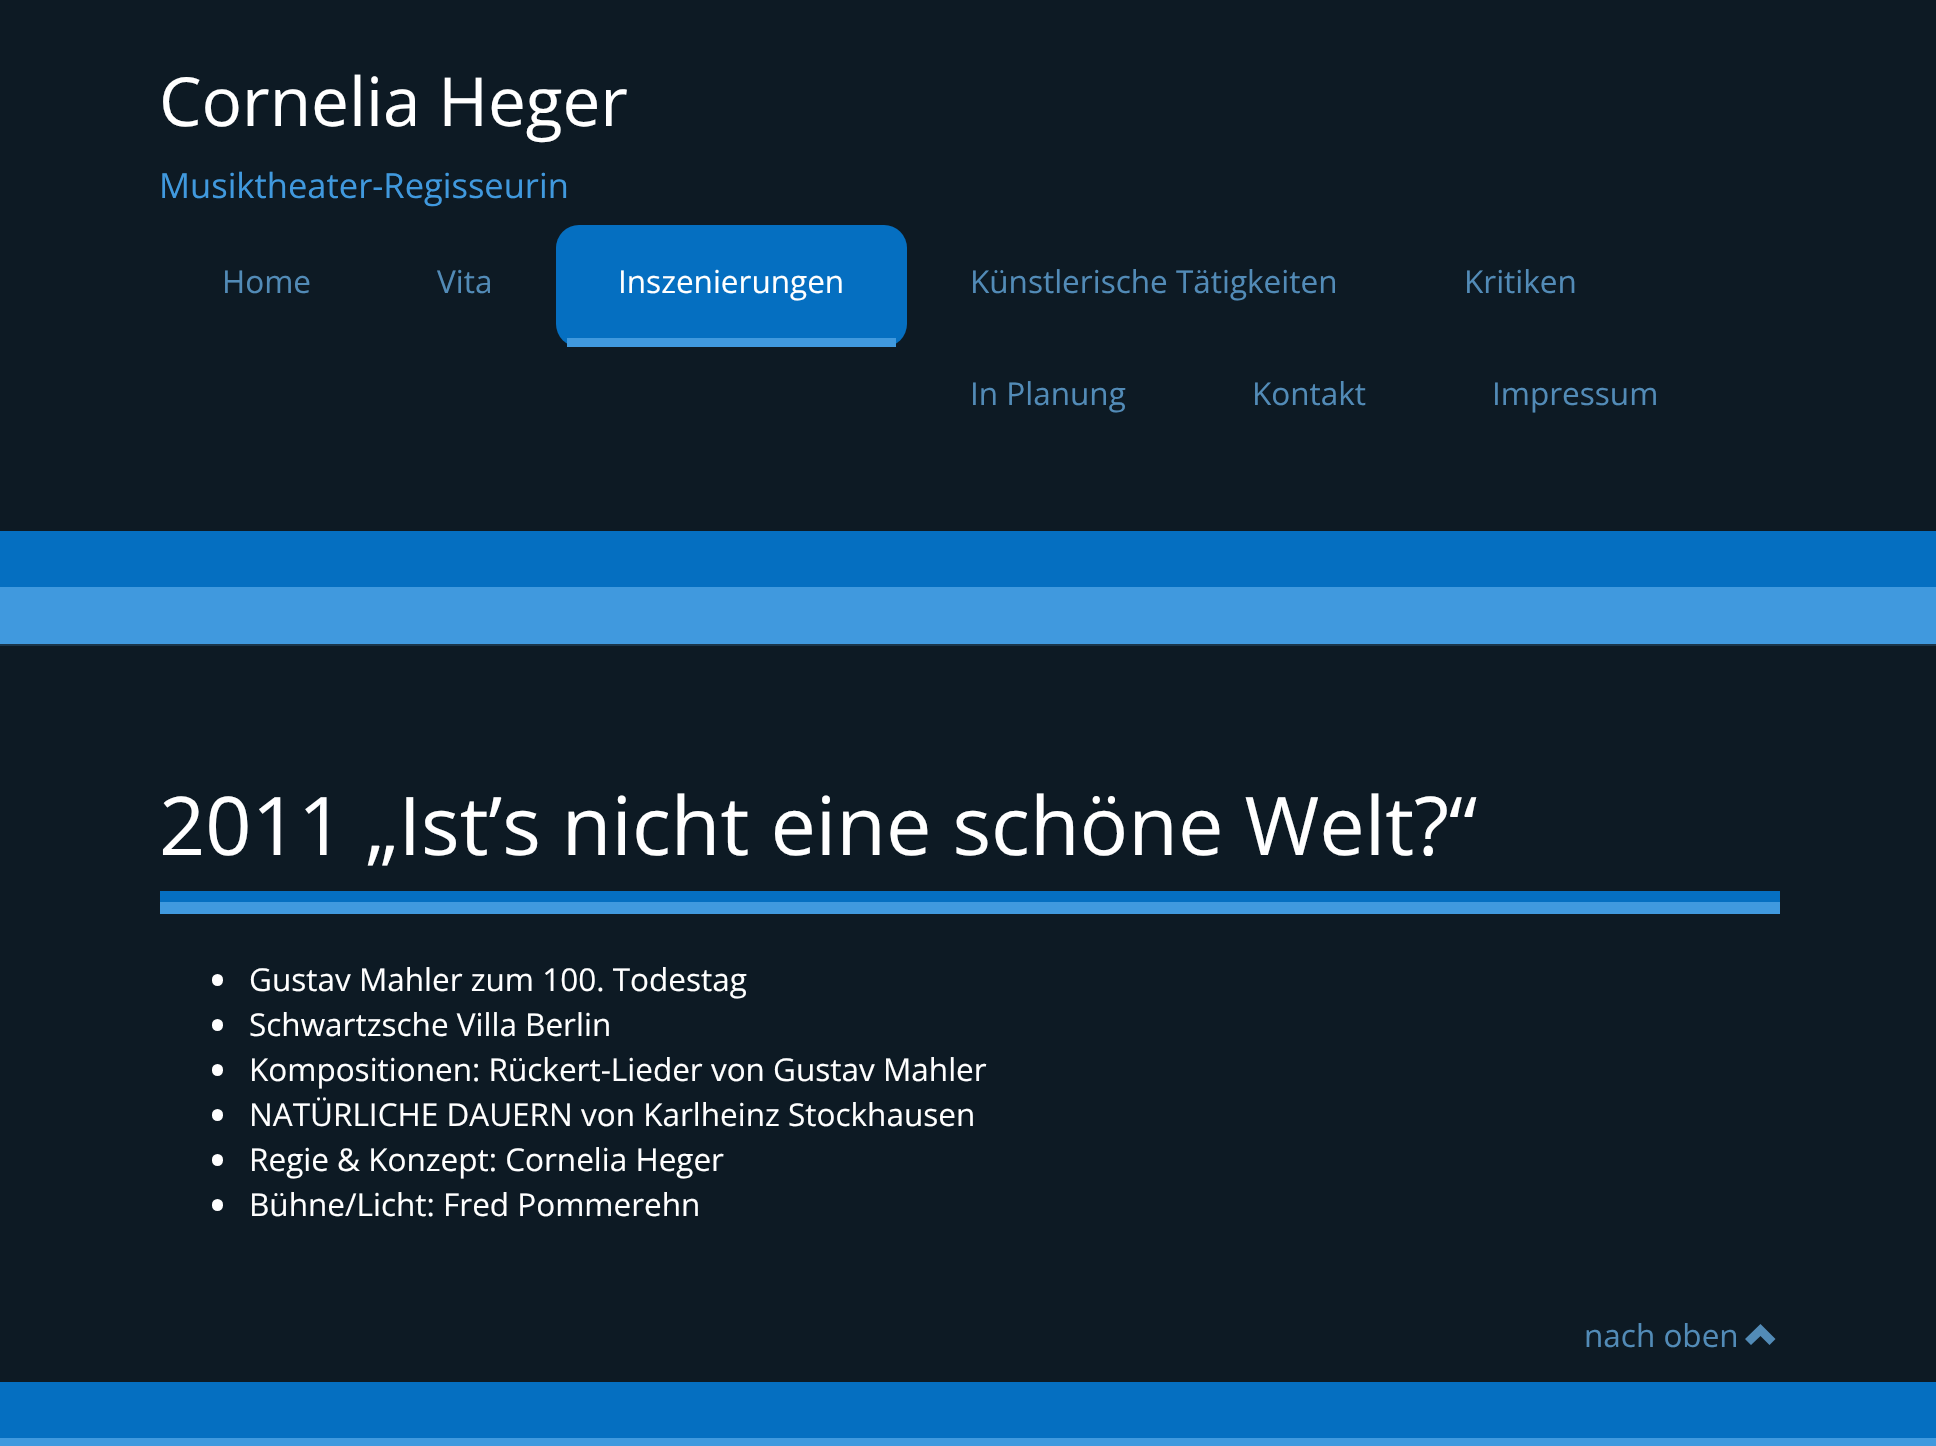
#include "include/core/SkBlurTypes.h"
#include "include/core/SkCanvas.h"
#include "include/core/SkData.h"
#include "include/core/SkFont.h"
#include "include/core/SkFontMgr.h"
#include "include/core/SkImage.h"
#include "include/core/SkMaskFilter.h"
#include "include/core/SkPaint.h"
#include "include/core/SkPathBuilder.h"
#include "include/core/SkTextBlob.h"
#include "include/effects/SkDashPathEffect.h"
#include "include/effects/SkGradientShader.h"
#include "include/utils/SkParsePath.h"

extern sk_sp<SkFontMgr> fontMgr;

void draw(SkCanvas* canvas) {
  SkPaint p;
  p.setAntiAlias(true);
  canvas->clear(SkColorSetRGB(13, 26, 36));
  p.setColor(SkColorSetRGB(27, 53, 73));
  canvas->drawRect(SkRect::MakeLTRB(0, 644, 1936, 646), p);
  p.setColor(SkColorSetRGB(5, 111, 193));
  canvas->drawRoundRect(SkRect::MakeLTRB(556, 225, 907, 347), 23, 23, p);
  p.setColor(SkColorSetRGB(64, 153, 222));
  canvas->drawRect(SkRect::MakeLTRB(567, 338, 896, 347), p);
  p.setColor(SkColorSetRGB(5, 111, 193));
  canvas->drawRect(SkRect::MakeLTRB(0, 531, 1936, 587), p);
  p.setColor(SkColorSetRGB(64, 153, 222));
  canvas->drawRect(SkRect::MakeLTRB(0, 587, 1936, 644), p);
  canvas->drawRect(SkRect::MakeLTRB(160, 902, 1780, 914), p);
  p.setColor(SkColorSetRGB(5, 111, 193));
  canvas->drawRect(SkRect::MakeLTRB(160, 891, 1780, 902), p);
  p.setColor(SK_ColorWHITE);
  canvas->drawRoundRect(SkRect::MakeLTRB(212, 974, 223, 986), 5.5f, 5.5f, p);
  canvas->drawRoundRect(SkRect::MakeLTRB(212, 1019, 223, 1031), 5.5f, 5.5f, p);
  canvas->drawRoundRect(SkRect::MakeLTRB(212, 1064, 223, 1076), 5.5f, 5.5f, p);
  canvas->drawRoundRect(SkRect::MakeLTRB(212, 1109, 223, 1121), 5.5f, 5.5f, p);
  canvas->drawRoundRect(SkRect::MakeLTRB(212, 1154, 223, 1166), 5.5f, 5.5f, p);
  canvas->drawRoundRect(SkRect::MakeLTRB(212, 1199, 223, 1211), 5.5f, 5.5f, p);
  p.setColor(SkColorSetRGB(82, 139, 183));
  canvas->drawPath(SkPathBuilder().moveTo(1745, 1339).lineTo(1751, 1345).lineTo(1760.5f, 1336).lineTo(1769.5f, 1345).lineTo(1775.5f, 1339).lineTo(1760.5f, 1324).close().detach(), p);
  p.setColor(SkColorSetRGB(5, 111, 193));
  canvas->drawRect(SkRect::MakeLTRB(0, 1382, 1936, 1438), p);
  p.setColor(SkColorSetRGB(64, 153, 222));
  canvas->drawRect(SkRect::MakeLTRB(0, 1438, 1936, 1446), p);
  SkFont font1(fontMgr->matchFamilyStyle("Open Sans", SkFontStyle::Normal()), 67.5f);
  font1.setSubpixel(true);
  p.setColor(SK_ColorWHITE);
  canvas->drawString("Cornelia Heger", 159, 126, font1, p);
  SkFont font2(fontMgr->matchFamilyStyle("Open Sans", SkFontStyle::Normal()), 34.5f);
  font2.setSubpixel(true);
  p.setColor(SkColorSetRGB(64, 153, 222));
  canvas->drawString("Musiktheater-Regisseurin", 159, 198, font2, p);
  SkFont font3(fontMgr->matchFamilyStyle("Open Sans", SkFontStyle::Normal()), 31.5f);
  font3.setSubpixel(true);
  p.setColor(SkColorSetRGB(82, 139, 183));
  canvas->drawString("Home", 222, 293, font3, p);
  canvas->drawString("Vita", 437, 293, font3, p);
  p.setColor(SK_ColorWHITE);
  canvas->drawString("Inszenierungen", 618, 293, font3, p);
  p.setColor(SkColorSetRGB(82, 139, 183));
  canvas->drawString("Künstlerische Tätigkeiten", 970, 293, font3, p);
  canvas->drawString("Kritiken", 1464, 293, font3, p);
  canvas->drawString("In Planung", 970, 405, font3, p);
  canvas->drawString("Kontakt", 1252, 405, font3, p);
  canvas->drawString("Impressum", 1492, 405, font3, p);
  SkFont font4(fontMgr->matchFamilyStyle("Open Sans", SkFontStyle::Normal()), 81);
  font4.setSubpixel(true);
  p.setColor(SK_ColorWHITE);
  canvas->drawString("2011 „Ist’s nicht eine schöne Welt?“", 159, 855, font4, p);
  canvas->drawString("Gustav Mahler zum 100. Todestag", 249, 991, font3, p);
  canvas->drawString("Schwartzsche Villa Berlin", 249, 1036, font3, p);
  canvas->drawString("Kompositionen: Rückert-Lieder von Gustav Mahler", 249, 1081, font3, p);
  canvas->drawString("NATÜRLICHE DAUERN von Karlheinz Stockhausen", 249, 1126, font3, p);
  canvas->drawString("Regie & Konzept: Cornelia Heger", 249, 1171, font3, p);
  canvas->drawString("Bühne/Licht: Fred Pommerehn", 249, 1216, font3, p);
  p.setColor(SkColorSetRGB(82, 139, 183));
  canvas->drawString("nach oben", 1584, 1347, font3, p);
}
